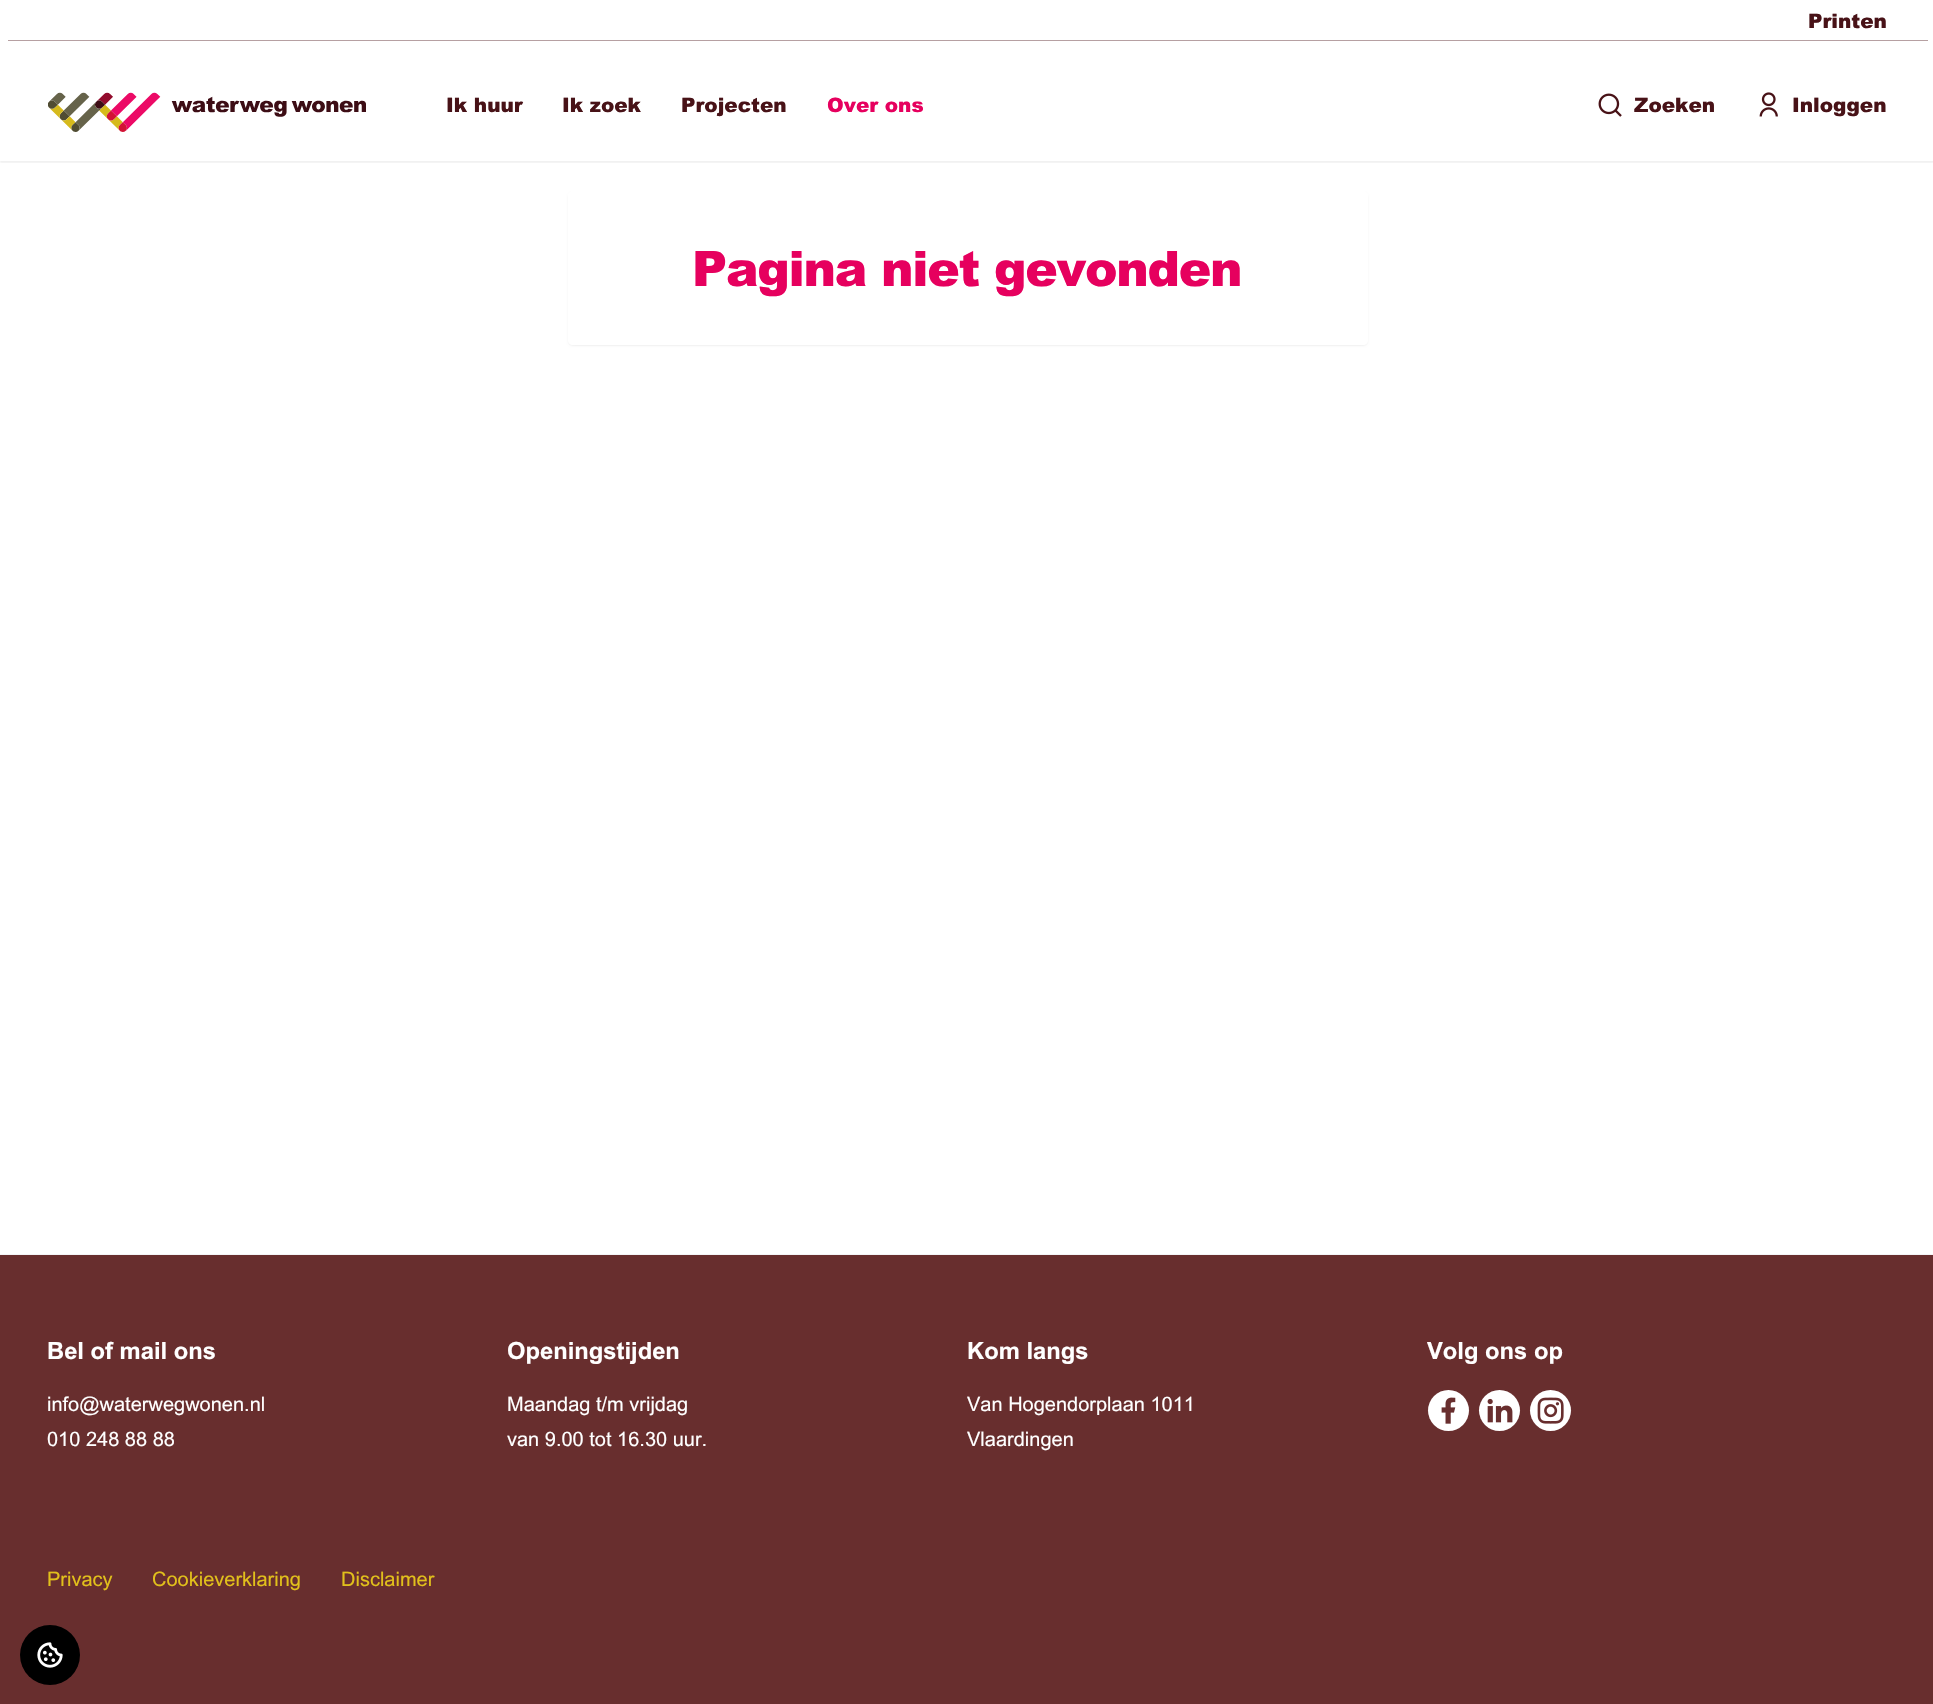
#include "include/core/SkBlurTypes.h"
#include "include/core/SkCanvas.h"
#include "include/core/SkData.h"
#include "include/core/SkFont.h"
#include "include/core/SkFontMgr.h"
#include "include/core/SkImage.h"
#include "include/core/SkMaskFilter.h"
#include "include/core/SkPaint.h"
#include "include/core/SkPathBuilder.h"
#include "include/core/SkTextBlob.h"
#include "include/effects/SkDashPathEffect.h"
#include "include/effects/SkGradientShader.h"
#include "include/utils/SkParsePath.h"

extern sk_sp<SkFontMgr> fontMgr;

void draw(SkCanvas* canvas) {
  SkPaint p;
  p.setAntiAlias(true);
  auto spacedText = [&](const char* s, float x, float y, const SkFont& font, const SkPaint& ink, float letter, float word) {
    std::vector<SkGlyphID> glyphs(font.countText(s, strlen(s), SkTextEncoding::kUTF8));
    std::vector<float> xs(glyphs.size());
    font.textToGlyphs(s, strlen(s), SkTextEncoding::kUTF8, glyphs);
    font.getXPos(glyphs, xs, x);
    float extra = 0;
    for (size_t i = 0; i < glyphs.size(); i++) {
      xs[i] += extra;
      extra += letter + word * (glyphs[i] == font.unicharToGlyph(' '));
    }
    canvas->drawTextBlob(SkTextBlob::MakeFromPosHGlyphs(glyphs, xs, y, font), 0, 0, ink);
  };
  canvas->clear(SK_ColorWHITE);
  p.setColor(SkColorSetRGB(182, 160, 162));
  canvas->drawRect(SkRect::MakeLTRB(8, 40, 1928, 41), p);
  canvas->save();
  canvas->clipRect(SkRect::MakeLTRB(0, 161, 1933, 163));
  p.setColor(SkColorSetARGB(15, 0, 0, 0));
  p.setMaskFilter(SkMaskFilter::MakeBlur(kNormal_SkBlurStyle, 1));
  canvas->drawRect(SkRect::MakeLTRB(0, 43, 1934, 163), p);
  p.setMaskFilter(nullptr);
  canvas->restore();
  canvas->drawImageRect(SkImages::DeferredFromEncodedData(SkData::MakeFromFileName("images/1.png")), SkRect::MakeLTRB(48, 92, 366, 132), SkSamplingOptions());
  canvas->drawImageRect(SkImages::DeferredFromEncodedData(SkData::MakeFromFileName("images/2.png")), SkRect::MakeLTRB(1598, 93, 1622, 117), SkSamplingOptions());
  canvas->drawImageRect(SkImages::DeferredFromEncodedData(SkData::MakeFromFileName("images/3.png")), SkRect::MakeLTRB(1759, 92, 1778, 117), SkSamplingOptions());
  canvas->save();
  canvas->clipPath(SkPathBuilder(SkPathFillType::kEvenOdd).moveTo(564, 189).lineTo(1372, 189).lineTo(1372, 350).lineTo(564, 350).close().moveTo(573, 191).lineTo(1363, 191).cubicTo(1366, 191, 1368, 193, 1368, 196).lineTo(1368, 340).cubicTo(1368, 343, 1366, 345, 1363, 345).lineTo(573, 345).cubicTo(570, 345, 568, 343, 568, 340).lineTo(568, 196).cubicTo(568, 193, 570, 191, 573, 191).close().detach(), true);
  p.setMaskFilter(SkMaskFilter::MakeBlur(kNormal_SkBlurStyle, 1));
  canvas->drawRoundRect(SkRect::MakeLTRB(568, 193, 1368, 346), 5, 5, p);
  p.setMaskFilter(nullptr);
  canvas->restore();
  p.setColor(SkColorSetARGB(204, 255, 255, 255));
  canvas->drawRoundRect(SkRect::MakeLTRB(568, 191, 1368, 345), 5, 5, p);
  p.setColor(SkColorSetRGB(104, 46, 46));
  canvas->drawRect(SkRect::MakeLTRB(0, 1255, 1933, 1704), p);
  p.setColor(SkColorSetRGB(243, 244, 246));
  canvas->drawRect(SkRect::MakeLTRB(0, 1254, 1933, 1255), p);
  p.setColor(SK_ColorWHITE);
  canvas->drawCircle(1448.5f, 1410.5f, 20.5f, p);
  canvas->drawImageRect(SkImages::DeferredFromEncodedData(SkData::MakeFromFileName("images/4.png")), SkRect::MakeLTRB(1441, 1397, 1456, 1424), SkSamplingOptions());
  canvas->drawCircle(1499.5f, 1410.5f, 20.5f, p);
  canvas->drawImageRect(SkImages::DeferredFromEncodedData(SkData::MakeFromFileName("images/5.png")), SkRect::MakeLTRB(1487, 1398, 1513, 1423), SkSamplingOptions());
  canvas->drawCircle(1550.5f, 1410.5f, 20.5f, p);
  canvas->drawImageRect(SkImages::DeferredFromEncodedData(SkData::MakeFromFileName("images/6.png")), SkRect::MakeLTRB(1537, 1397, 1564, 1424), SkSamplingOptions());
  p.setColor(SK_ColorBLACK);
  canvas->drawCircle(50, 1655, 30, p);
  canvas->drawImageRect(SkImages::DeferredFromEncodedData(SkData::MakeFromFileName("images/7.png")), SkRect::MakeLTRB(37, 1642, 63, 1668), SkSamplingOptions());
  SkFont font1(fontMgr->matchFamilyStyle("Arial", SkFontStyle(900, SkFontStyle::kNormal_Width, SkFontStyle::kUpright_Slant)), 20);
  font1.setSubpixel(true);
  p.setColor(SkColorSetRGB(72, 18, 23));
  canvas->drawString("Printen", 1808, 28, font1, p);
  canvas->drawString("Ik huur", 446, 112, font1, p);
  canvas->drawString("Ik zoek", 562, 112, font1, p);
  canvas->drawString("Projecten", 681, 112, font1, p);
  p.setColor(SkColorSetRGB(230, 0, 94));
  canvas->drawString("Over ons", 827, 112, font1, p);
  p.setColor(SkColorSetRGB(72, 18, 23));
  canvas->drawString("Zoeken", 1634, 112, font1, p);
  canvas->drawString("Inloggen", 1792, 112, font1, p);
  SkFont font2(fontMgr->matchFamilyStyle("Arial", SkFontStyle(900, SkFontStyle::kNormal_Width, SkFontStyle::kUpright_Slant)), 48.75f);
  font2.setSubpixel(true);
  p.setColor(SkColorSetRGB(230, 0, 94));
  spacedText("Pagina niet gevonden", 692, 286, font2, p, -1.25f, 0);
  SkFont font3(fontMgr->matchFamilyStyle("Arial", SkFontStyle::Bold()), 23.75f);
  font3.setSubpixel(true);
  p.setColor(SK_ColorWHITE);
  canvas->drawString("Bel of mail ons", 47, 1359, font3, p);
  SkFont font4(fontMgr->matchFamilyStyle("Arial", SkFontStyle::Normal()), 20);
  font4.setSubpixel(true);
  canvas->drawString("info@waterwegwonen.nl", 47, 1411, font4, p);
  canvas->drawString("010 248 88 88", 47, 1446, font4, p);
  canvas->drawString("Openingstijden", 507, 1359, font3, p);
  canvas->drawString("Maandag t/m vrijdag", 507, 1411, font4, p);
  canvas->drawString("van 9.00 tot 16.30 uur.", 507, 1446, font4, p);
  canvas->drawString("Kom langs", 967, 1359, font3, p);
  canvas->drawString("Van Hogendorplaan 1011", 967, 1411, font4, p);
  canvas->drawString("Vlaardingen", 967, 1446, font4, p);
  canvas->drawString("Volg ons op", 1427, 1359, font3, p);
  p.setColor(SkColorSetRGB(225, 192, 27));
  canvas->drawString("Privacy", 47, 1586, font4, p);
  canvas->drawString("Cookieverklaring", 152, 1586, font4, p);
  canvas->drawString("Disclaimer", 341, 1586, font4, p);
}
